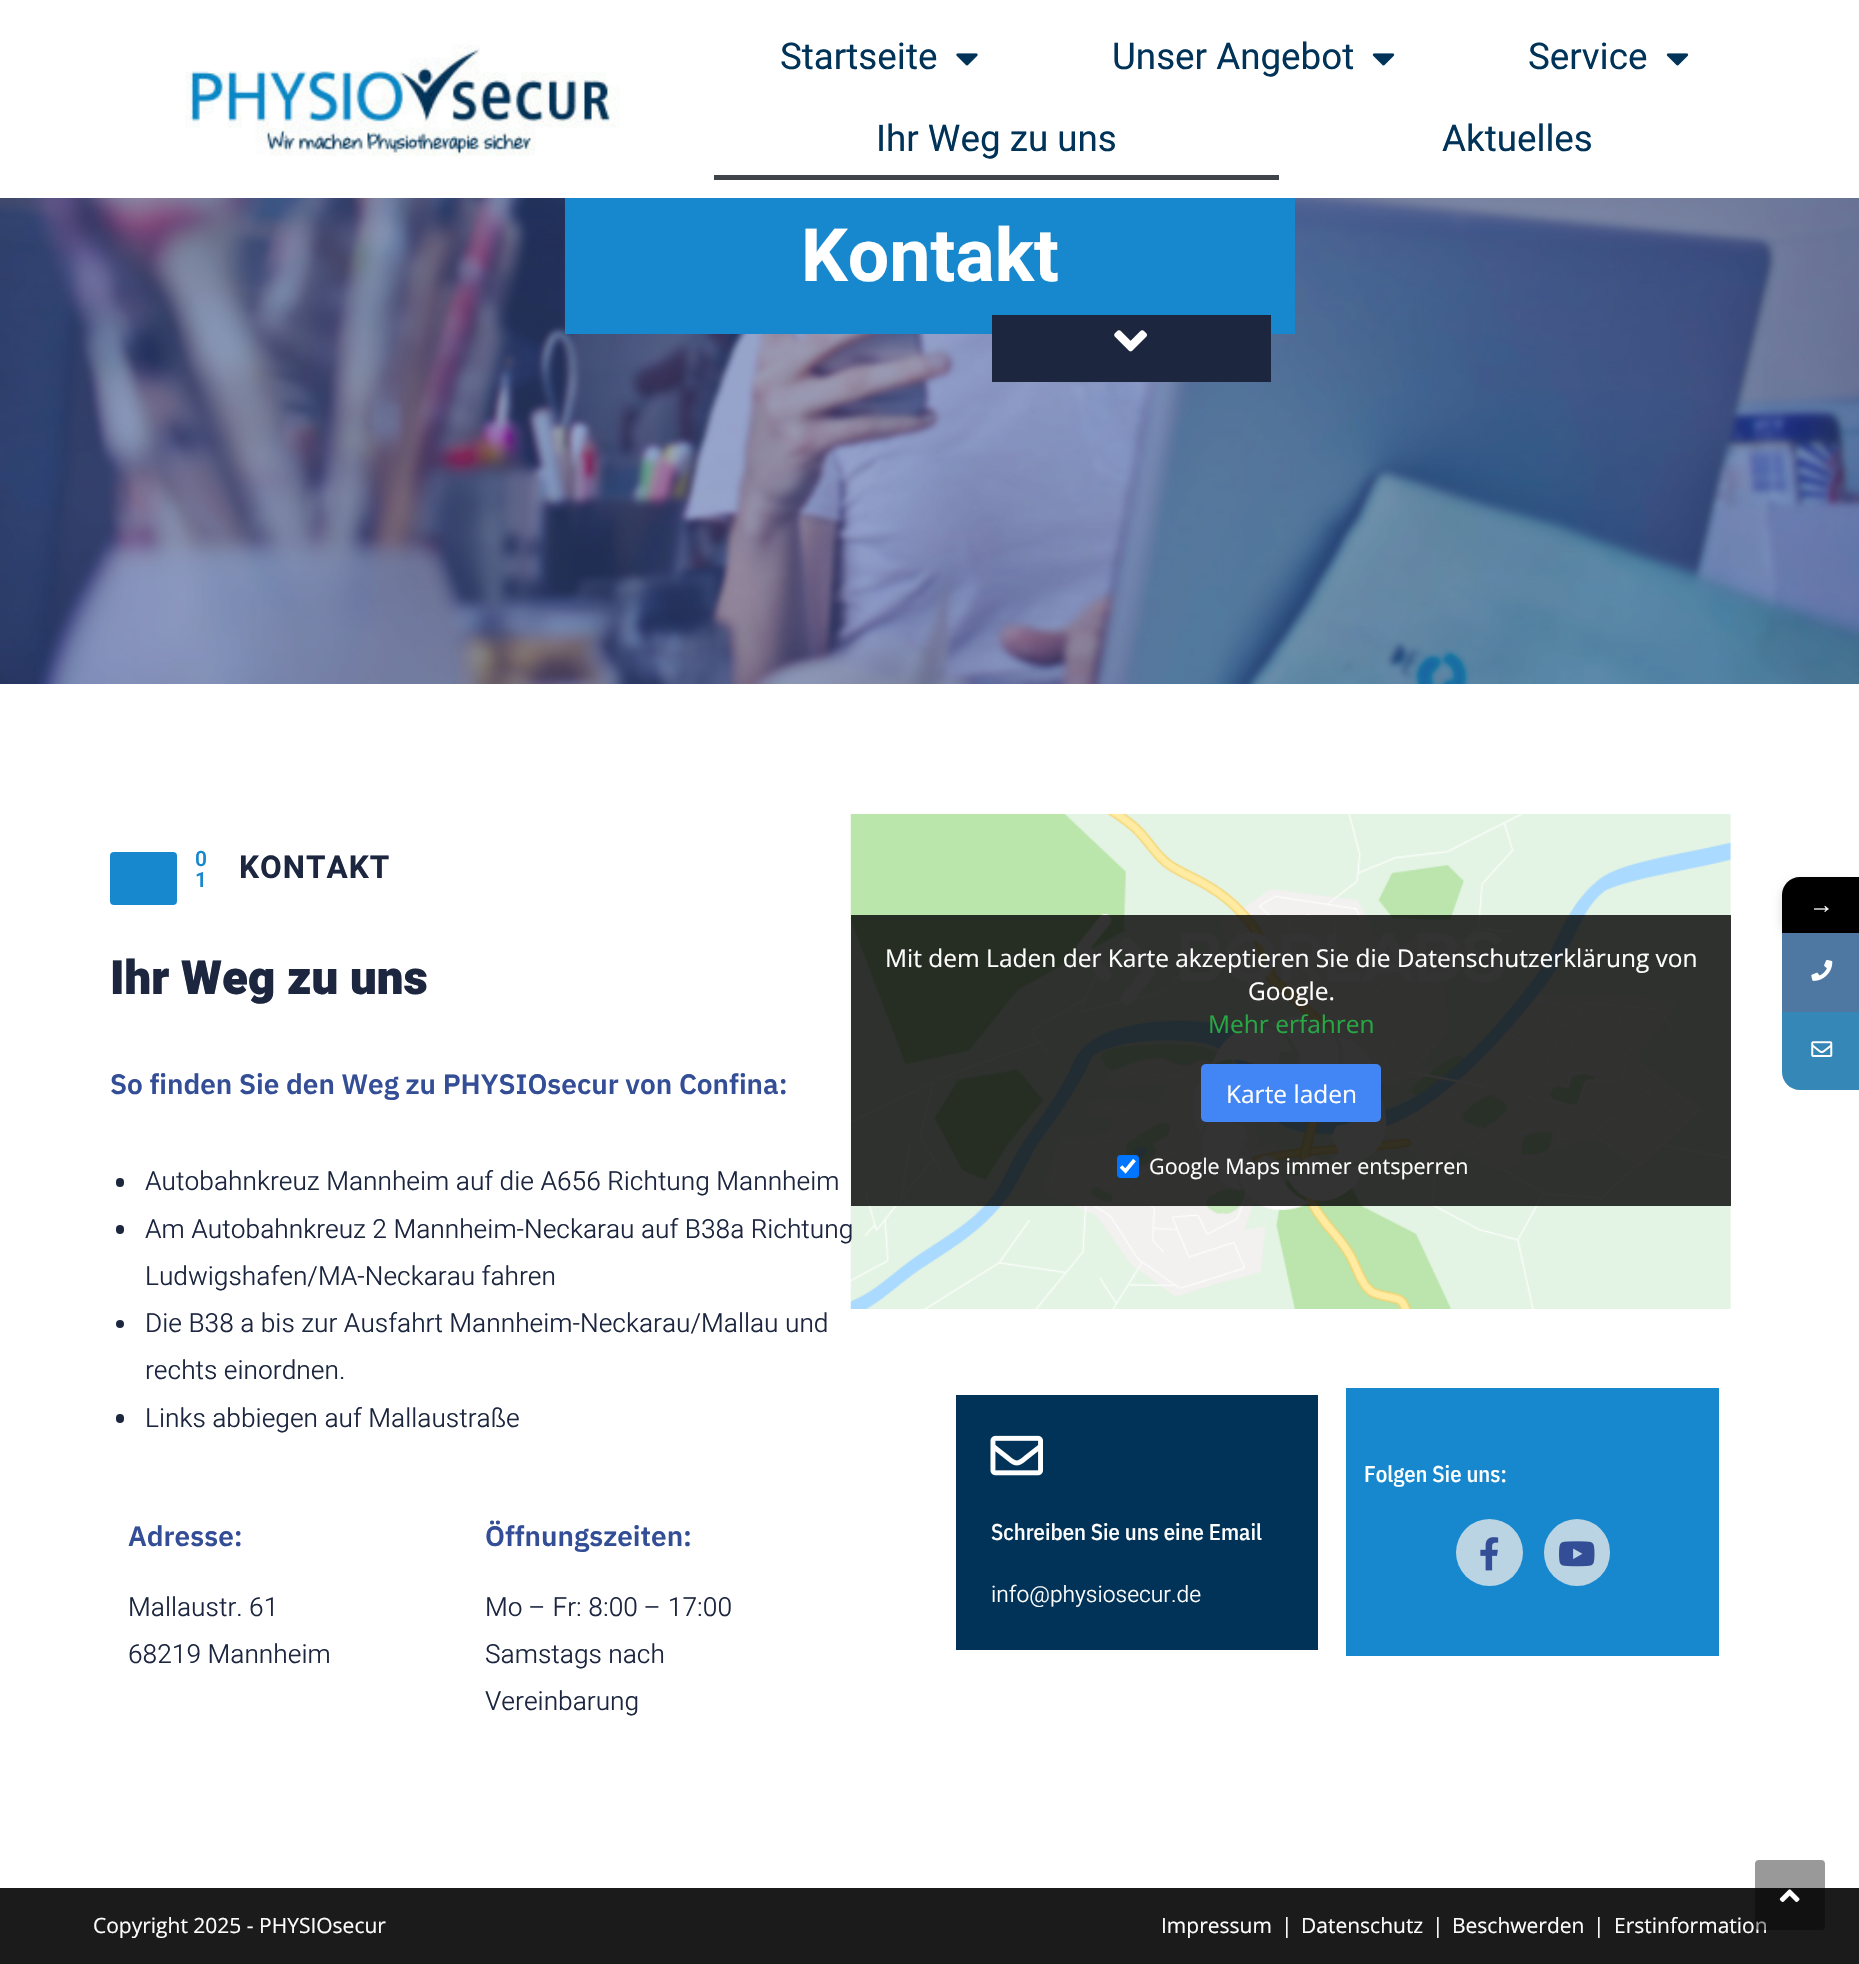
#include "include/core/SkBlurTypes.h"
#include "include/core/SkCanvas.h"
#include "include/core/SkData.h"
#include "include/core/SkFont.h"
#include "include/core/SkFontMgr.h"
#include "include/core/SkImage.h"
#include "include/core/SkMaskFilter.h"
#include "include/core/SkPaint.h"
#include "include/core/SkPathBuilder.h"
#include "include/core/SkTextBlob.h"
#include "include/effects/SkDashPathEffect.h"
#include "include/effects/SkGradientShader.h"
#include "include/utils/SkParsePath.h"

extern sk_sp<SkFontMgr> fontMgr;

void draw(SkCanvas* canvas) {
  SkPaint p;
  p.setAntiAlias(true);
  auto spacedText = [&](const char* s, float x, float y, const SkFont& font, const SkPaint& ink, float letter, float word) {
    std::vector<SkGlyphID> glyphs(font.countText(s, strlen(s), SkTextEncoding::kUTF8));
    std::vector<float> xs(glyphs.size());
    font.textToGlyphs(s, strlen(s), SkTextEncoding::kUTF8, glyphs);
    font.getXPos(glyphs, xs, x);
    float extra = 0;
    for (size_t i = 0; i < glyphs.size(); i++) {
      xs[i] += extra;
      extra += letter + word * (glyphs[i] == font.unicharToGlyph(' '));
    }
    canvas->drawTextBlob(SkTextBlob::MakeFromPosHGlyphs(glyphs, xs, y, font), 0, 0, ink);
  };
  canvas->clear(SK_ColorWHITE);
  canvas->drawImageRect(SkImages::DeferredFromEncodedData(SkData::MakeFromFileName("images/1.png")), SkRect::MakeLTRB(185, 44, 620, 156), SkSamplingOptions());
  canvas->drawImageRect(SkImages::DeferredFromEncodedData(SkData::MakeFromFileName("images/2.png")), SkRect::MakeLTRB(956, 53, 978, 66), SkSamplingOptions());
  canvas->drawImageRect(SkImages::DeferredFromEncodedData(SkData::MakeFromFileName("images/3.png")), SkRect::MakeLTRB(1372, 53, 1395, 66), SkSamplingOptions());
  canvas->drawImageRect(SkImages::DeferredFromEncodedData(SkData::MakeFromFileName("images/3.png")), SkRect::MakeLTRB(1666, 53, 1689, 66), SkSamplingOptions());
  p.setColor(SkColorSetRGB(63, 68, 75));
  canvas->drawRect(SkRect::MakeLTRB(714, 175, 1279, 180), p);
  canvas->drawImageRect(SkImages::DeferredFromEncodedData(SkData::MakeFromFileName("images/4.png")), SkRect::MakeLTRB(0, 198, 1859, 684), SkSamplingOptions());
  p.setColor(SkColorSetRGB(23, 136, 206));
  canvas->drawRect(SkRect::MakeLTRB(565, 198, 1295, 334), p);
  p.setColor(SkColorSetRGB(28, 38, 63));
  canvas->drawRect(SkRect::MakeLTRB(992, 315, 1271, 382), p);
  canvas->drawImageRect(SkImages::DeferredFromEncodedData(SkData::MakeFromFileName("images/5.png")), SkRect::MakeLTRB(1114, 330, 1147, 352), SkSamplingOptions());
  p.setColor(SkColorSetRGB(23, 136, 206));
  canvas->drawRoundRect(SkRect::MakeLTRB(110, 852, 177, 905), 4, 4, p);
  p.setColor(SkColorSetRGB(28, 38, 63));
  canvas->drawRoundRect(SkRect::MakeLTRB(116, 1178, 124, 1187), 4, 4, p);
  canvas->drawRoundRect(SkRect::MakeLTRB(116, 1225, 124, 1234), 4, 4, p);
  canvas->drawCircle(120, 1324, 4, p);
  canvas->drawRoundRect(SkRect::MakeLTRB(116, 1414, 124, 1423), 4, 4, p);
  canvas->drawImageRect(SkImages::DeferredFromEncodedData(SkData::MakeFromFileName("images/6.png")), SkRect::MakeLTRB(850, 813, 1731, 1309), SkSamplingOptions());
  p.setColor(SkColorSetARGB(204, 0, 0, 0));
  canvas->drawRect(SkRect::MakeLTRB(851, 915, 1731, 1206), p);
  p.setColor(SkColorSetRGB(66, 133, 244));
  canvas->drawRoundRect(SkRect::MakeLTRB(1201, 1064, 1381, 1122), 5, 5, p);
  p.setColor(SkColorSetRGB(0, 117, 255));
  canvas->drawRoundRect(SkRect::MakeLTRB(1117, 1155, 1139, 1178), 4, 4, p);
  p.setStyle(SkPaint::kStroke_Style);
  p.setStrokeWidth(3.6f);
  p.setColor(SK_ColorWHITE);
  canvas->drawPath(SkPathBuilder().moveTo(1121, 1166.5f).lineTo(1125.5f, 1171).lineTo(1134.5f, 1160).detach(), p);
  p.setStyle(SkPaint::kFill_Style);
  p.setColor(SkColorSetRGB(23, 136, 206));
  canvas->drawRect(SkRect::MakeLTRB(1346, 1388, 1719, 1656), p);
  p.setColor(SkColorSetRGB(186, 212, 227));
  canvas->drawCircle(1489.5f, 1552.5f, 33.5f, p);
  canvas->drawImageRect(SkImages::DeferredFromEncodedData(SkData::MakeFromFileName("images/7.png")), SkRect::MakeLTRB(1480, 1537, 1499, 1571), SkSamplingOptions());
  canvas->drawRoundRect(SkRect::MakeLTRB(1544, 1519, 1610, 1586), 33, 33, p);
  canvas->drawImageRect(SkImages::DeferredFromEncodedData(SkData::MakeFromFileName("images/8.png")), SkRect::MakeLTRB(1559, 1541, 1595, 1567), SkSamplingOptions());
  p.setColor(SkColorSetRGB(0, 51, 87));
  canvas->drawRect(SkRect::MakeLTRB(956, 1395, 1318, 1650), p);
  canvas->drawImageRect(SkImages::DeferredFromEncodedData(SkData::MakeFromFileName("images/9.png")), SkRect::MakeLTRB(990, 1435, 1043, 1476), SkSamplingOptions());
  p.setColor(SkColorSetRGB(27, 27, 27));
  canvas->drawRect(SkRect::MakeLTRB(0, 1888, 1859, 1964), p);
  p.setColor(SkColorSetARGB(41, 0, 0, 0));
  p.setMaskFilter(SkMaskFilter::MakeBlur(kNormal_SkBlurStyle, 5));
  canvas->drawRoundRect(SkRect::MakeLTRB(1782, 882, 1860, 938), 18, 18, p);
  p.setMaskFilter(nullptr);
  p.setColor(SK_ColorBLACK);
  canvas->drawPath(SkPathBuilder().moveTo(1800, 877).lineTo(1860, 877).lineTo(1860, 933).lineTo(1782, 933).lineTo(1782, 895).cubicTo(1782, 885, 1790, 877, 1800, 877).close().detach(), p);
  p.setColor(SkColorSetRGB(78, 119, 162));
  canvas->drawRect(SkRect::MakeLTRB(1782, 933, 1859, 1012), p);
  canvas->drawImageRect(SkImages::DeferredFromEncodedData(SkData::MakeFromFileName("images/10.png")), SkRect::MakeLTRB(1811, 959, 1833, 981), SkSamplingOptions());
  p.setColor(SkColorSetRGB(52, 135, 183));
  canvas->drawPath(SkPathBuilder().moveTo(1782, 1012).lineTo(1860, 1012).lineTo(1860, 1090).lineTo(1800, 1090).cubicTo(1790, 1090, 1782, 1082, 1782, 1072).close().detach(), p);
  canvas->drawImageRect(SkImages::DeferredFromEncodedData(SkData::MakeFromFileName("images/11.png")), SkRect::MakeLTRB(1811, 1041, 1833, 1057), SkSamplingOptions());
  SkFont font1(fontMgr->matchFamilyStyle("Heebo", SkFontStyle::Normal()), 36.75f);
  font1.setSubpixel(true);
  p.setColor(SkColorSetRGB(0, 51, 87));
  canvas->drawString("Startseite", 780, 69, font1, p);
  canvas->drawString("Unser Angebot", 1112, 69, font1, p);
  canvas->drawString("Service", 1528, 69, font1, p);
  canvas->drawString("Ihr Weg zu uns", 876, 151, font1, p);
  canvas->drawString("Aktuelles", 1442, 151, font1, p);
  SkFont font2(fontMgr->matchFamilyStyle("Heebo", SkFontStyle::Bold()), 73.5f);
  font2.setSubpixel(true);
  p.setColor(SK_ColorWHITE);
  canvas->drawString("Kontakt", 801, 281, font2, p);
  SkFont font3(fontMgr->matchFamilyStyle("Heebo", SkFontStyle(600, SkFontStyle::kNormal_Width, SkFontStyle::kUpright_Slant)), 21);
  font3.setSubpixel(true);
  p.setColor(SkColorSetRGB(23, 136, 206));
  canvas->drawString("0", 195, 866, font3, p);
  canvas->drawString("1", 195, 887, font3, p);
  SkFont font4(fontMgr->matchFamilyStyle("Heebo", SkFontStyle::Bold()), 31.5f);
  font4.setSubpixel(true);
  p.setColor(SkColorSetRGB(28, 38, 63));
  spacedText("KONTAKT", 239, 878, font4, p, 1, 0);
  SkFont font5(fontMgr->matchFamilyStyle("Heebo", SkFontStyle(900, SkFontStyle::kNormal_Width, SkFontStyle::kUpright_Slant)), 47.25f);
  font5.setSubpixel(true);
  canvas->drawString("Ihr Weg zu uns", 110, 994, font5, p);
  SkFont font6(fontMgr->matchFamilyStyle("IBM Plex Sans", SkFontStyle(600, SkFontStyle::kNormal_Width, SkFontStyle::kUpright_Slant)), 28);
  font6.setSubpixel(true);
  p.setColor(SkColorSetRGB(51, 78, 150));
  canvas->drawString("So finden Sie den Weg zu PHYSIOsecur von Confina:", 110, 1094, font6, p);
  SkFont font7(fontMgr->matchFamilyStyle("Heebo", SkFontStyle(300, SkFontStyle::kNormal_Width, SkFontStyle::kUpright_Slant)), 26.25f);
  font7.setSubpixel(true);
  p.setColor(SkColorSetRGB(28, 38, 63));
  canvas->drawString("Autobahnkreuz Mannheim auf die A656 Richtung Mannheim", 145, 1190, font7, p);
  canvas->drawString("Am Autobahnkreuz 2 Mannheim-Neckarau auf B38a Richtung", 145, 1238, font7, p);
  canvas->drawString("Ludwigshafen/MA-Neckarau fahren", 145, 1285, font7, p);
  canvas->drawString("Die B38 a bis zur Ausfahrt Mannheim-Neckarau/Mallau und", 145, 1332, font7, p);
  canvas->drawString("rechts einordnen.", 145, 1379, font7, p);
  canvas->drawString("Links abbiegen auf Mallaustraße", 145, 1427, font7, p);
  p.setColor(SkColorSetRGB(51, 78, 150));
  canvas->drawString("Adresse:", 128, 1546, font6, p);
  p.setColor(SkColorSetRGB(28, 38, 63));
  canvas->drawString("Mallaustr. 61", 128, 1616, font7, p);
  canvas->drawString("68219 Mannheim", 128, 1663, font7, p);
  p.setColor(SkColorSetRGB(51, 78, 150));
  canvas->drawString("Öffnungszeiten:", 485, 1546, font6, p);
  p.setColor(SkColorSetRGB(28, 38, 63));
  canvas->drawString("Mo – Fr: 8:00 – 17:00", 485, 1616, font7, p);
  canvas->drawString("Samstags nach", 485, 1663, font7, p);
  canvas->drawString("Vereinbarung", 485, 1710, font7, p);
  SkFont font8(fontMgr->matchFamilyStyle("Open Sans", SkFontStyle::Normal()), 24.5f);
  font8.setSubpixel(true);
  p.setColor(SK_ColorWHITE);
  canvas->drawString("Mit dem Laden der Karte akzeptieren Sie die Datenschutzerklärung von", 885, 967, font8, p);
  canvas->drawString("Google.", 1248, 1000, font8, p);
  p.setColor(SkColorSetRGB(40, 167, 69));
  canvas->drawString("Mehr erfahren", 1208, 1033, font8, p);
  p.setColor(SK_ColorWHITE);
  canvas->drawString("Karte laden", 1226, 1103, font8, p);
  SkFont font9(fontMgr->matchFamilyStyle("Open Sans", SkFontStyle::Normal()), 21.5f);
  font9.setSubpixel(true);
  canvas->drawString("Google Maps immer entsperren", 1149, 1174, font9, p);
  SkFont font10(fontMgr->matchFamilyStyle("IBM Plex Sans Condensed", SkFontStyle(500, SkFontStyle::kNormal_Width, SkFontStyle::kUpright_Slant)), 22.75f);
  font10.setSubpixel(true);
  canvas->drawString("Folgen Sie uns:", 1364, 1482, font10, p);
  canvas->drawString("Schreiben Sie uns eine Email", 991, 1540, font10, p);
  SkFont font11(fontMgr->matchFamilyStyle("Heebo", SkFontStyle(300, SkFontStyle::kNormal_Width, SkFontStyle::kUpright_Slant)), 22.75f);
  font11.setSubpixel(true);
  canvas->drawString("info@physiosecur.de", 991, 1602, font11, p);
  SkFont font12(fontMgr->matchFamilyStyle("Open Sans", SkFontStyle::Normal()), 21);
  font12.setSubpixel(true);
  canvas->drawString("Copyright 2025 - PHYSIOsecur", 93, 1933, font12, p);
  canvas->drawString("Impressum", 1161, 1933, font12, p);
  canvas->drawString("|", 1281, 1933, font12, p);
  canvas->drawString("Datenschutz", 1301, 1933, font12, p);
  canvas->drawString("|", 1432, 1933, font12, p);
  canvas->drawString("Beschwerden", 1452, 1933, font12, p);
  canvas->drawString("|", 1593, 1933, font12, p);
  canvas->drawString("Erstinformation", 1614, 1933, font12, p);
  SkFont font13(fontMgr->matchFamilyStyle("Liberation Sans", SkFontStyle::Normal()), 24.5f);
  font13.setSubpixel(true);
  canvas->drawString("→", 1809, 913, font13, p);
  p.setColor(SkColorSetARGB(102, 0, 0, 0));
  canvas->drawRoundRect(SkRect::MakeLTRB(1755, 1860, 1825, 1930), 4, 4, p);
  canvas->drawImageRect(SkImages::DeferredFromEncodedData(SkData::MakeFromFileName("images/12.png")), SkRect::MakeLTRB(1779, 1889, 1800, 1902), SkSamplingOptions());
}
